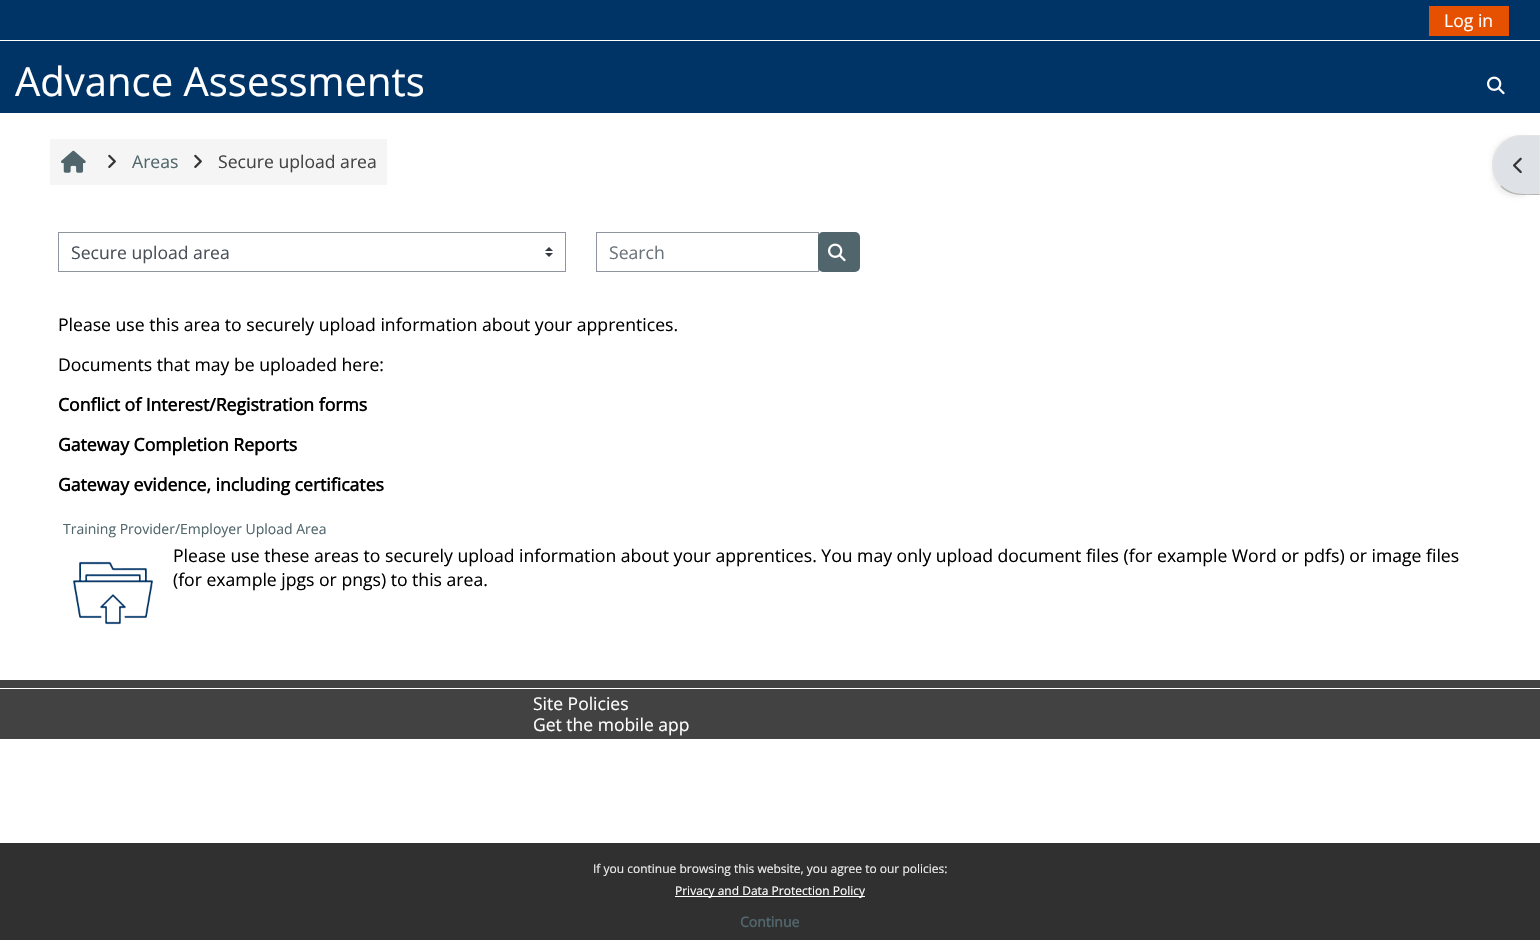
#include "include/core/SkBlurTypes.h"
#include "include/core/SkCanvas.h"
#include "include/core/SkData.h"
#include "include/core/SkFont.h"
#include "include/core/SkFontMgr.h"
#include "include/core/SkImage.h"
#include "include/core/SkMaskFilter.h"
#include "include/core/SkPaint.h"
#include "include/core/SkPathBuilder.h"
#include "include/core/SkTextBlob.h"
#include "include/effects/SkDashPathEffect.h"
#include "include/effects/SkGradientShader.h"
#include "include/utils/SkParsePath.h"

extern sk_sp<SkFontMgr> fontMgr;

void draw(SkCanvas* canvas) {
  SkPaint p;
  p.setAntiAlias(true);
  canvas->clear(SK_ColorWHITE);
  p.setColor(SkColorSetRGB(0, 51, 102));
  canvas->drawRect(SkRect::MakeLTRB(0, 0, 1540, 113), p);
  p.setColor(SK_ColorWHITE);
  canvas->drawRect(SkRect::MakeLTRB(0, 40, 1540, 41), p);
  p.setColor(SkColorSetRGB(229, 81, 0));
  canvas->drawRect(SkRect::MakeLTRB(1429, 6, 1509, 36), p);
  canvas->drawImageRect(SkImages::DeferredFromEncodedData(SkData::MakeFromFileName("images/1.png")), SkRect::MakeLTRB(1487, 76, 1505, 95), SkSamplingOptions());
  p.setColor(SkColorSetRGB(245, 245, 245));
  canvas->drawRect(SkRect::MakeLTRB(50, 139, 387, 185), p);
  canvas->drawImageRect(SkImages::DeferredFromEncodedData(SkData::MakeFromFileName("images/2.png")), SkRect::MakeLTRB(61, 150, 86, 173), SkSamplingOptions());
  canvas->drawImageRect(SkImages::DeferredFromEncodedData(SkData::MakeFromFileName("images/3.png")), SkRect::MakeLTRB(108, 154, 116, 168), SkSamplingOptions());
  canvas->drawImageRect(SkImages::DeferredFromEncodedData(SkData::MakeFromFileName("images/3.png")), SkRect::MakeLTRB(194, 154, 202, 168), SkSamplingOptions());
  canvas->drawImageRect(SkImages::DeferredFromEncodedData(SkData::MakeFromFileName("images/4.png")), SkRect::MakeLTRB(545, 247, 553, 257), SkSamplingOptions());
  p.setStyle(SkPaint::kStroke_Style);
  p.setStrokeWidth(1);
  p.setColor(SkColorSetRGB(143, 149, 158));
  canvas->drawRect(SkRect::MakeLTRB(58.5f, 232.5f, 565.5f, 271.5f), p);
  canvas->drawRect(SkRect::MakeLTRB(596.5f, 232.5f, 818.5f, 271.5f), p);
  p.setStyle(SkPaint::kFill_Style);
  p.setColor(SkColorSetRGB(81, 102, 108));
  canvas->drawRoundRect(SkRect::MakeLTRB(818, 232, 860, 272), 5, 5, p);
  canvas->drawImageRect(SkImages::DeferredFromEncodedData(SkData::MakeFromFileName("images/5.png")), SkRect::MakeLTRB(828, 243, 846, 262), SkSamplingOptions());
  canvas->drawImageRect(SkImages::DeferredFromEncodedData(SkData::MakeFromFileName("images/6.png")), SkRect::MakeLTRB(73, 561, 153, 625), SkSamplingOptions());
  p.setColor(SkColorSetARGB(18, 0, 0, 0));
  p.setMaskFilter(SkMaskFilter::MakeBlur(kNormal_SkBlurStyle, 2));
  canvas->drawRoundRect(SkRect::MakeLTRB(1492, 137, 1540, 197), 30, 30, p);
  p.setMaskFilter(nullptr);
  p.setColor(SkColorSetRGB(222, 226, 230));
  canvas->drawPath(SkPathBuilder().moveTo(1522, 135).lineTo(1540, 135).lineTo(1540, 195).lineTo(1522, 195).cubicTo(1505.5f, 195, 1492, 181.5f, 1492, 165).cubicTo(1492, 148.5f, 1505.5f, 135, 1522, 135).close().detach(), p);
  p.setColor(SkColorSetRGB(230, 230, 230));
  canvas->drawPath(SkPathBuilder().moveTo(1522, 135).cubicTo(1513, 135, 1506, 138.5f, 1501, 144).lineTo(1501.5f, 144.5f).cubicTo(1511.5f, 134, 1525.5f, 136, 1539, 136).lineTo(1540, 135).close().detach(), p);
  canvas->drawPath(SkPathBuilder().moveTo(1540, 135).lineTo(1539, 136).lineTo(1539, 194).lineTo(1540, 195).close().detach(), p);
  p.setColor(SkColorSetRGB(179, 179, 179));
  canvas->drawPath(SkPathBuilder().moveTo(1540, 195).lineTo(1527.5f, 195).cubicTo(1517, 195, 1508.5f, 194.5f, 1500.5f, 186.5f).lineTo(1501.5f, 185.5f).cubicTo(1511.5f, 196, 1525.5f, 194, 1539, 194).close().detach(), p);
  p.setColor(SkColorSetRGB(230, 230, 230));
  canvas->drawPath(SkPathBuilder().moveTo(1501, 144).cubicTo(1490, 155, 1489, 175, 1501, 186).cubicTo(1490, 174, 1491, 156, 1502, 145).close().detach(), p);
  canvas->drawImageRect(SkImages::DeferredFromEncodedData(SkData::MakeFromFileName("images/7.png")), SkRect::MakeLTRB(1513, 157, 1522, 174), SkSamplingOptions());
  p.setColor(SkColorSetRGB(66, 66, 66));
  canvas->drawRect(SkRect::MakeLTRB(0, 680, 1540, 739), p);
  p.setColor(SK_ColorWHITE);
  canvas->drawRect(SkRect::MakeLTRB(0, 688, 1540, 689), p);
  p.setColor(SkColorSetRGB(48, 48, 48));
  canvas->drawRect(SkRect::MakeLTRB(0, 843, 1540, 940), p);
  p.setColor(SK_ColorWHITE);
  canvas->drawRect(SkRect::MakeLTRB(675, 896, 865, 897), p);
  SkFont font1(fontMgr->matchFamilyStyle("Open Sans", SkFontStyle::Normal()), 17.6f);
  font1.setSubpixel(true);
  canvas->drawString("Log in", 1444, 27, font1, p);
  SkFont font2(fontMgr->matchFamilyStyle("Open Sans", SkFontStyle::Normal()), 40);
  font2.setSubpixel(true);
  canvas->drawString("Advance Assessments", 15, 96, font2, p);
  p.setColor(SkColorSetRGB(81, 102, 108));
  canvas->drawString("Areas", 132, 168, font1, p);
  p.setColor(SkColorSetRGB(68, 68, 68));
  canvas->drawString("Secure upload area", 218, 168, font1, p);
  p.setColor(SkColorSetRGB(73, 80, 87));
  canvas->drawString("Secure upload area", 71, 259, font1, p);
  p.setColor(SkColorSetRGB(106, 115, 123));
  canvas->drawString("Search", 609, 259, font1, p);
  p.setColor(SK_ColorBLACK);
  canvas->drawString("Please use this area to securely upload information about your apprentices.", 58, 331, font1, p);
  canvas->drawString("Documents that may be uploaded here:", 58, 371, font1, p);
  SkFont font3(fontMgr->matchFamilyStyle("Open Sans", SkFontStyle::Bold()), 17.6f);
  font3.setSubpixel(true);
  canvas->drawString("Conflict of Interest/Registration forms", 58, 411, font3, p);
  canvas->drawString("Gateway Completion Reports", 58, 451, font3, p);
  canvas->drawString("Gateway evidence, including certificates", 58, 491, font3, p);
  SkFont font4(fontMgr->matchFamilyStyle("Open Sans", SkFontStyle::Normal()), 14);
  font4.setSubpixel(true);
  p.setColor(SkColorSetRGB(81, 102, 108));
  canvas->drawString("Training Provider/Employer Upload Area", 63, 534, font4, p);
  p.setColor(SK_ColorBLACK);
  canvas->drawString("Please use these areas to securely upload information about your apprentices. You may only upload document files (for example Word or pdfs) or image files", 173, 562, font1, p);
  canvas->drawString("(for example jpgs or pngs) to this area.", 173, 586, font1, p);
  SkFont font5(fontMgr->matchFamilyStyle("Open Sans", SkFontStyle::Normal()), 17.5f);
  font5.setSubpixel(true);
  p.setColor(SK_ColorWHITE);
  canvas->drawString("Site Policies", 533, 710, font5, p);
  canvas->drawString("Get the mobile app", 533, 731, font5, p);
  SkFont font6(fontMgr->matchFamilyStyle("Open Sans", SkFontStyle::Normal()), 12);
  font6.setSubpixel(true);
  p.setColor(SkColorSetRGB(239, 239, 239));
  canvas->drawString("If you continue browsing this website, you agree to our policies:", 593, 873, font6, p);
  p.setColor(SK_ColorWHITE);
  canvas->drawString("Privacy and Data Protection Policy", 675, 895, font6, p);
  SkFont font7(fontMgr->matchFamilyStyle("Open Sans", SkFontStyle::Bold()), 14);
  font7.setSubpixel(true);
  p.setColor(SkColorSetRGB(81, 102, 108));
  canvas->drawString("Continue", 740, 927, font7, p);
}
